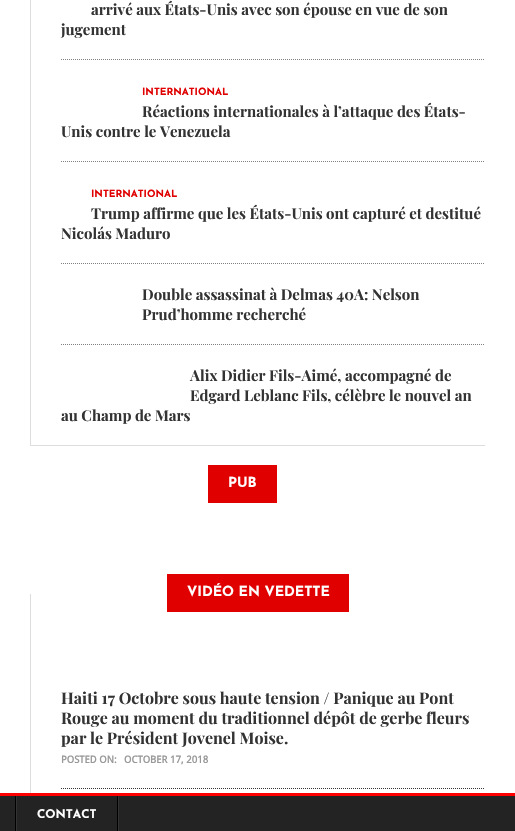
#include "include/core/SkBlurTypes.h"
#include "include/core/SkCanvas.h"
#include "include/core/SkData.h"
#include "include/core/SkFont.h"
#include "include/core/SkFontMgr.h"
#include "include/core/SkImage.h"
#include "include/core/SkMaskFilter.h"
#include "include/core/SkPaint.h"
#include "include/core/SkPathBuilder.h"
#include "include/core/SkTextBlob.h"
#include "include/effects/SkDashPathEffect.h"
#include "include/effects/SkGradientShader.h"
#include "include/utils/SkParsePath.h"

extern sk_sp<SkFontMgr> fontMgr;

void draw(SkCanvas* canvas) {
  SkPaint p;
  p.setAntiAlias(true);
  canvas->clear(SK_ColorWHITE);
  p.setColor(SkColorSetRGB(221, 221, 221));
  canvas->drawRect(SkRect::MakeLTRB(30, 445, 485, 446), p);
  canvas->drawRect(SkRect::MakeLTRB(30, 0, 31, 446), p);
  p.setStyle(SkPaint::kStroke_Style);
  p.setStrokeWidth(1);
  p.setColor(SkColorSetRGB(127, 127, 127));
  p.setPathEffect(SkDashPathEffect::Make({{1, 1}}, 0));
  canvas->drawPath(SkPathBuilder().moveTo(61, 59.5f).lineTo(485, 59.5f).detach(), p);
  p.setPathEffect(nullptr);
  p.setPathEffect(SkDashPathEffect::Make({{1, 1}}, 0));
  canvas->drawPath(SkPathBuilder().moveTo(61, 161.5f).lineTo(485, 161.5f).detach(), p);
  p.setPathEffect(nullptr);
  p.setPathEffect(SkDashPathEffect::Make({{1, 1}}, 0));
  canvas->drawPath(SkPathBuilder().moveTo(61, 263.5f).lineTo(485, 263.5f).detach(), p);
  p.setPathEffect(nullptr);
  p.setPathEffect(SkDashPathEffect::Make({{1, 1}}, 0));
  canvas->drawPath(SkPathBuilder().moveTo(61, 344.5f).lineTo(485, 344.5f).detach(), p);
  p.setPathEffect(nullptr);
  p.setStyle(SkPaint::kFill_Style);
  p.setColor(SkColorSetRGB(224, 0, 0));
  canvas->drawRect(SkRect::MakeLTRB(208, 465, 277, 503), p);
  p.setColor(SkColorSetRGB(221, 221, 221));
  canvas->drawRect(SkRect::MakeLTRB(30, 594, 31, 793), p);
  p.setColor(SkColorSetRGB(224, 0, 0));
  canvas->drawRect(SkRect::MakeLTRB(167, 574, 349, 612), p);
  p.setStyle(SkPaint::kStroke_Style);
  p.setColor(SkColorSetRGB(51, 51, 51));
  p.setPathEffect(SkDashPathEffect::Make({{1, 1}}, 0));
  canvas->drawPath(SkPathBuilder().moveTo(61, 788.5f).lineTo(485, 788.5f).detach(), p);
  p.setPathEffect(nullptr);
  p.setStyle(SkPaint::kFill_Style);
  p.setColor(SkColorSetRGB(35, 35, 35));
  canvas->drawRect(SkRect::MakeLTRB(0, 796, 515, 831), p);
  p.setColor(SkColorSetRGB(255, 0, 0));
  canvas->drawRect(SkRect::MakeLTRB(0, 793, 515, 796), p);
  p.setColor(SkColorSetRGB(51, 51, 51));
  canvas->drawRect(SkRect::MakeLTRB(118, 796, 119, 831), p);
  p.setColor(SK_ColorBLACK);
  canvas->drawRect(SkRect::MakeLTRB(15, 796, 16, 831), p);
  canvas->drawRect(SkRect::MakeLTRB(117, 796, 118, 831), p);
  p.setColor(SkColorSetRGB(51, 51, 51));
  canvas->drawRect(SkRect::MakeLTRB(16, 796, 17, 831), p);
  SkFont font1(fontMgr->matchFamilyStyle("Playfair Display", SkFontStyle::Bold()), 15);
  font1.setSubpixel(true);
  canvas->drawString("arrivé aux États-Unis avec son épouse en vue de son", 91, 15, font1, p);
  canvas->drawString("jugement", 61, 35, font1, p);
  SkFont font2(fontMgr->matchFamilyStyle("Josefin Sans", SkFontStyle::Bold()), 10);
  font2.setSubpixel(true);
  p.setColor(SkColorSetRGB(224, 0, 0));
  canvas->drawString("INTERNATIONAL", 142, 95, font2, p);
  p.setColor(SkColorSetRGB(51, 51, 51));
  canvas->drawString("Réactions internationales à l’attaque des États-", 142, 117, font1, p);
  canvas->drawString("Unis contre le Venezuela", 61, 137, font1, p);
  p.setColor(SkColorSetRGB(224, 0, 0));
  canvas->drawString("INTERNATIONAL", 91, 197, font2, p);
  p.setColor(SkColorSetRGB(51, 51, 51));
  canvas->drawString("Trump affirme que les États-Unis ont capturé et destitué", 91, 219, font1, p);
  canvas->drawString("Nicolás Maduro", 61, 239, font1, p);
  canvas->drawString("Double assassinat à Delmas 40A: Nelson", 142, 300, font1, p);
  canvas->drawString("Prud’homme recherché", 142, 320, font1, p);
  canvas->drawString("Alix Didier Fils-Aimé, accompagné de", 190, 381, font1, p);
  canvas->drawString("Edgard Leblanc Fils, célèbre le nouvel an", 190, 401, font1, p);
  canvas->drawString("au Champ de Mars", 61, 421, font1, p);
  SkFont font3(fontMgr->matchFamilyStyle("Josefin Sans", SkFontStyle::Bold()), 14);
  font3.setSubpixel(true);
  p.setColor(SK_ColorWHITE);
  canvas->drawString("PUB", 228, 487, font3, p);
  canvas->drawString("VIDÉO EN VEDETTE", 187, 596, font3, p);
  SkFont font4(fontMgr->matchFamilyStyle("Playfair Display", SkFontStyle::Bold()), 16);
  font4.setSubpixel(true);
  p.setColor(SkColorSetRGB(51, 51, 51));
  canvas->drawString("Haiti 17 Octobre sous haute tension / Panique au Pont", 61, 704, font4, p);
  canvas->drawString("Rouge au moment du traditionnel dépôt de gerbe fleurs", 61, 724, font4, p);
  canvas->drawString("par le Président Jovenel Moise.", 61, 744, font4, p);
  SkFont font5(fontMgr->matchFamilyStyle("Droid Sans", SkFontStyle::Bold()), 10);
  font5.setSubpixel(true);
  p.setColor(SkColorSetRGB(153, 153, 153));
  canvas->drawString("POSTED ON:", 61, 763, font5, p);
  canvas->drawString("OCTOBER 17, 2018", 124, 763, font5, p);
  SkFont font6(fontMgr->matchFamilyStyle("Josefin Sans", SkFontStyle::Bold()), 12);
  font6.setSubpixel(true);
  p.setColor(SK_ColorWHITE);
  canvas->drawString("CONTACT", 37, 818, font6, p);
}
